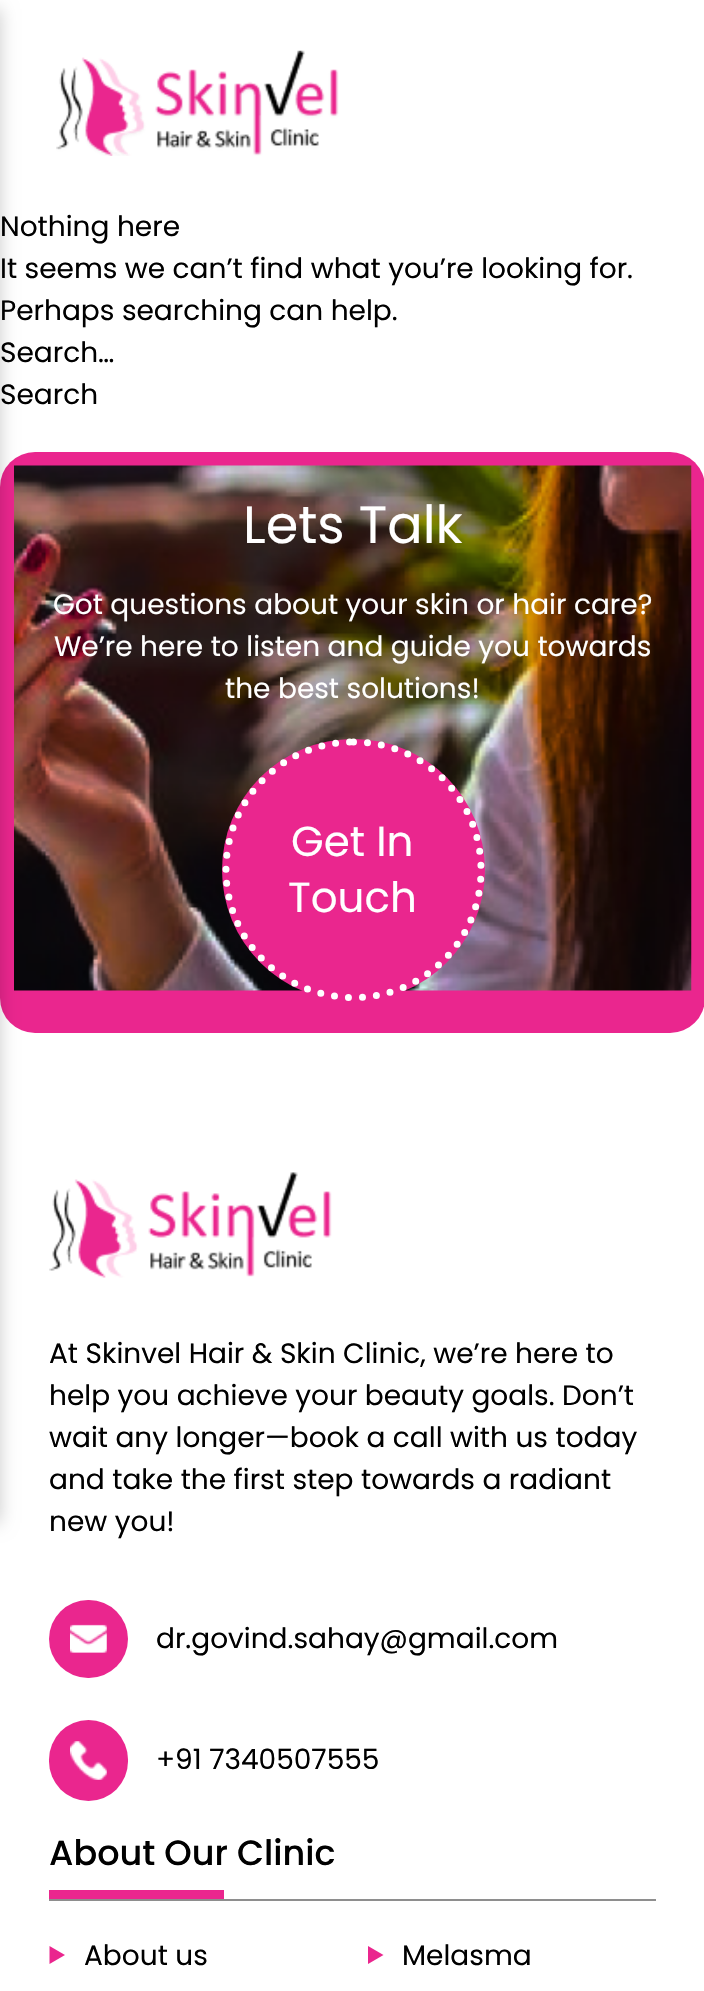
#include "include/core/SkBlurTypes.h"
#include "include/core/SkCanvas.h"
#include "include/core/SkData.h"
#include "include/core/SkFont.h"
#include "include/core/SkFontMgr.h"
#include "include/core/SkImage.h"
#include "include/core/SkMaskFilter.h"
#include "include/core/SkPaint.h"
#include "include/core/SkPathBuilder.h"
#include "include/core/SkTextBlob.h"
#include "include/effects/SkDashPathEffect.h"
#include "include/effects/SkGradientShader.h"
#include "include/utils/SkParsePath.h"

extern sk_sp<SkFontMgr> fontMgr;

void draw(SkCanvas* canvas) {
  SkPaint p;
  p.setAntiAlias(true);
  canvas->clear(SK_ColorWHITE);
  p.setColor(SkColorSetRGB(234, 38, 142));
  canvas->drawRoundRect(SkRect::MakeLTRB(0, 452, 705, 1033), 35, 35, p);
  canvas->drawImageRect(SkImages::DeferredFromEncodedData(SkData::MakeFromFileName("images/2.png")), SkRect::MakeLTRB(14, 465, 692, 991), SkSamplingOptions());
  p.setColor(SkColorSetARGB(51, 0, 0, 0));
  p.setMaskFilter(SkMaskFilter::MakeBlur(kNormal_SkBlurStyle, 9));
  canvas->drawRect(SkRect::MakeLTRB(-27, 9, 0, 1523), p);
  p.setMaskFilter(nullptr);
  canvas->drawImageRect(SkImages::DeferredFromEncodedData(SkData::MakeFromFileName("images/1.png")), SkRect::MakeLTRB(56, 50, 339, 156), SkSamplingOptions());
  p.setColor(SkColorSetRGB(234, 38, 142));
  canvas->drawRoundRect(SkRect::MakeLTRB(222, 739, 485, 1001), 131, 131, p);
  p.setStyle(SkPaint::kStroke_Style);
  p.setStrokeWidth(7);
  p.setStrokeCap(SkPaint::kRound_Cap);
  p.setColor(SK_ColorWHITE);
  p.setPathEffect(SkDashPathEffect::Make({{0, 14}}, 0));
  canvas->drawPath(SkPathBuilder().moveTo(353.5f, 742).cubicTo(424, 742, 481, 799, 481, 870).cubicTo(481, 940.5f, 424, 997.5f, 353.5f, 997.5f).cubicTo(283, 997.5f, 226, 940.5f, 226, 870).cubicTo(226, 799, 283, 742, 353.5f, 742).close().detach(), p);
  p.setPathEffect(nullptr);
  canvas->drawImageRect(SkImages::DeferredFromEncodedData(SkData::MakeFromFileName("images/3.png")), SkRect::MakeLTRB(49, 1172, 332, 1278), SkSamplingOptions());
  p.setStyle(SkPaint::kFill_Style);
  p.setColor(SkColorSetRGB(234, 38, 142));
  canvas->drawRoundRect(SkRect::MakeLTRB(49, 1600, 128, 1678), 39, 39, p);
  canvas->drawImageRect(SkImages::DeferredFromEncodedData(SkData::MakeFromFileName("images/4.png")), SkRect::MakeLTRB(70, 1624, 107, 1653), SkSamplingOptions());
  canvas->drawRoundRect(SkRect::MakeLTRB(49, 1720, 128, 1801), 39.5f, 39.5f, p);
  canvas->drawImageRect(SkImages::DeferredFromEncodedData(SkData::MakeFromFileName("images/5.png")), SkRect::MakeLTRB(70, 1741, 107, 1780), SkSamplingOptions());
  p.setColor(SkColorSetRGB(142, 142, 142));
  canvas->drawRect(SkRect::MakeLTRB(49, 1899, 656, 1901), p);
  p.setColor(SkColorSetRGB(234, 38, 142));
  canvas->drawRect(SkRect::MakeLTRB(49, 1890, 224, 1899), p);
  canvas->drawPath(SkPathBuilder().moveTo(49.5f, 1946).lineTo(65, 1955).lineTo(49.5f, 1964).close().detach(), p);
  canvas->drawPath(SkPathBuilder().moveTo(368, 1946).lineTo(383.5f, 1955).lineTo(368, 1964).close().detach(), p);
  SkFont font1(fontMgr->matchFamilyStyle("Poppins", SkFontStyle::Normal()), 28);
  font1.setSubpixel(true);
  p.setColor(SK_ColorBLACK);
  canvas->drawString("Nothing here", 0, 236, font1, p);
  canvas->drawString("It seems we can’t find what you’re looking for.", 0, 278, font1, p);
  canvas->drawString("Perhaps searching can help.", 0, 320, font1, p);
  canvas->drawString("Search…", 0, 362, font1, p);
  canvas->drawString("Search", 0, 404, font1, p);
  SkFont font2(fontMgr->matchFamilyStyle("Poppins", SkFontStyle::Normal()), 52.5f);
  font2.setSubpixel(true);
  p.setColor(SK_ColorWHITE);
  canvas->drawString("Lets Talk", 243, 543, font2, p);
  canvas->drawString("Got questions about your skin or hair care?", 53, 614, font1, p);
  canvas->drawString("We’re here to listen and guide you towards", 54, 656, font1, p);
  canvas->drawString("the best solutions!", 225, 698, font1, p);
  SkFont font3(fontMgr->matchFamilyStyle("Poppins", SkFontStyle::Normal()), 42);
  font3.setSubpixel(true);
  canvas->drawString("Get In", 291, 856, font3, p);
  canvas->drawString("Touch", 288, 912, font3, p);
  p.setColor(SK_ColorBLACK);
  canvas->drawString("At Skinvel Hair & Skin Clinic, we’re here to", 49, 1363, font1, p);
  canvas->drawString("help you achieve your beauty goals. Don’t", 49, 1405, font1, p);
  canvas->drawString("wait any longer—book a call with us today", 49, 1447, font1, p);
  canvas->drawString("and take the first step towards a radiant", 49, 1489, font1, p);
  canvas->drawString("new you!", 49, 1531, font1, p);
  canvas->drawString("dr.govind.sahay@gmail.com", 156, 1648, font1, p);
  canvas->drawString("+91 7340507555", 156, 1769, font1, p);
  SkFont font4(fontMgr->matchFamilyStyle("Poppins", SkFontStyle(500, SkFontStyle::kNormal_Width, SkFontStyle::kUpright_Slant)), 35);
  font4.setSubpixel(true);
  canvas->drawString("About Our Clinic", 49, 1865, font4, p);
  canvas->drawString("About us", 84, 1965, font1, p);
  canvas->drawString("Melasma", 402, 1965, font1, p);
}
